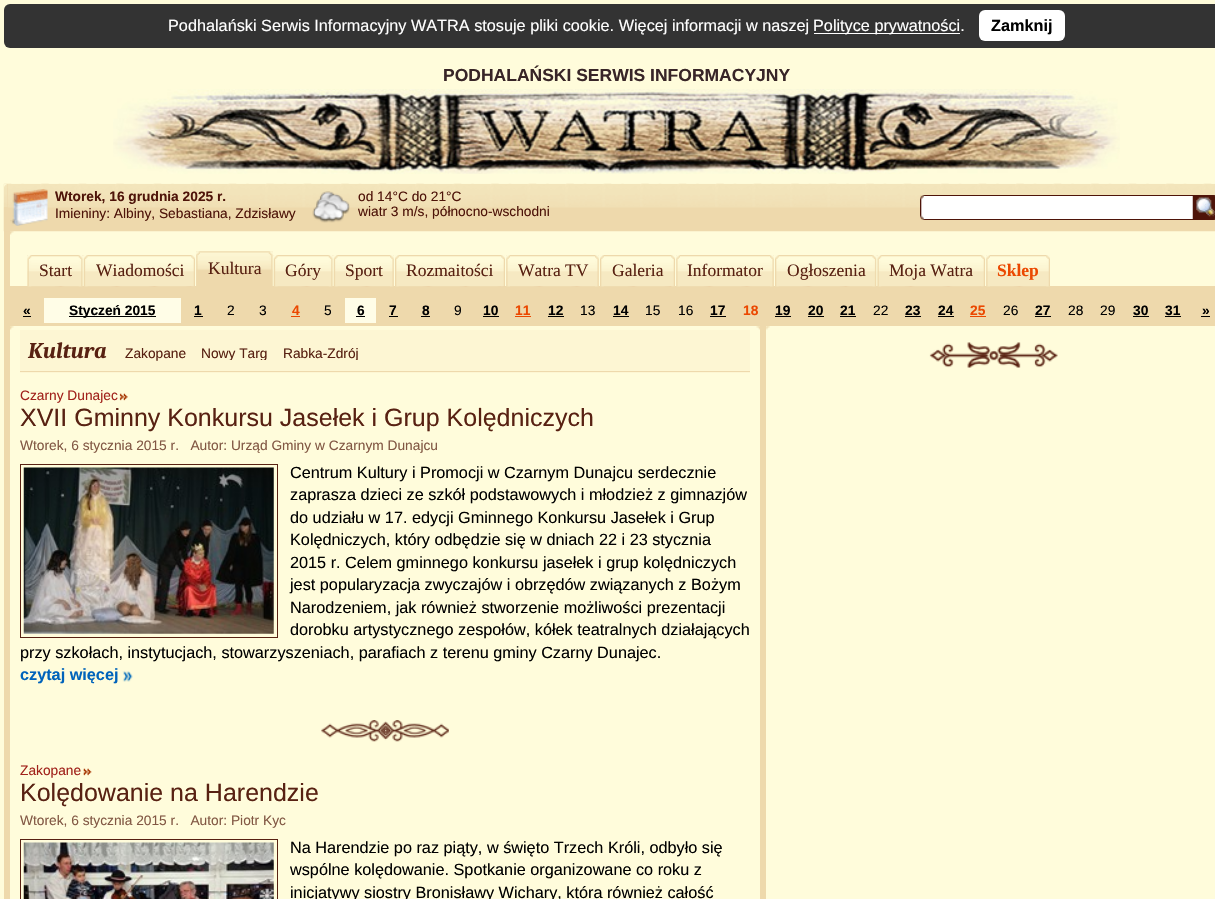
#include "include/core/SkBlurTypes.h"
#include "include/core/SkCanvas.h"
#include "include/core/SkData.h"
#include "include/core/SkFont.h"
#include "include/core/SkFontMgr.h"
#include "include/core/SkImage.h"
#include "include/core/SkMaskFilter.h"
#include "include/core/SkPaint.h"
#include "include/core/SkPathBuilder.h"
#include "include/core/SkTextBlob.h"
#include "include/effects/SkDashPathEffect.h"
#include "include/effects/SkGradientShader.h"
#include "include/utils/SkParsePath.h"

extern sk_sp<SkFontMgr> fontMgr;

void draw(SkCanvas* canvas) {
  SkPaint p;
  p.setAntiAlias(true);
  canvas->clear(SkColorSetRGB(255, 252, 219));
  p.setColor(SkColorSetRGB(51, 51, 51));
  canvas->drawRoundRect(SkRect::MakeLTRB(4, 4, 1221, 48), 6, 6, p);
  p.setColor(SK_ColorWHITE);
  canvas->drawRect(SkRect::MakeLTRB(814, 33, 960, 34), p);
  canvas->drawRoundRect(SkRect::MakeLTRB(979, 10, 1065, 41), 6, 6, p);
  canvas->drawImageRect(SkImages::DeferredFromEncodedData(SkData::MakeFromFileName("images/1.png")), SkRect::MakeLTRB(113, 89, 1120, 174), SkSamplingOptions());
  p.setColor(SkColorSetRGB(238, 217, 172));
  canvas->drawRect(SkRect::MakeLTRB(4, 231, 10, 899), p);
  canvas->drawImageRect(SkImages::DeferredFromEncodedData(SkData::MakeFromFileName("images/8.png")), SkRect::MakeLTRB(10, 231, 14, 235), SkSamplingOptions());
  canvas->drawImageRect(SkImages::DeferredFromEncodedData(SkData::MakeFromFileName("images/2.png")), SkRect::MakeLTRB(3, 183, 1215, 232), SkSamplingOptions());
  canvas->drawRect(SkRect::MakeLTRB(4, 184, 8, 208), p);
  canvas->drawImageRect(SkImages::DeferredFromEncodedData(SkData::MakeFromFileName("images/3.png")), SkRect::MakeLTRB(4, 184, 8, 207), SkSamplingOptions());
  canvas->drawImageRect(SkImages::DeferredFromEncodedData(SkData::MakeFromFileName("images/4.png")), SkRect::MakeLTRB(10, 189, 48, 226), SkSamplingOptions());
  canvas->drawImageRect(SkImages::DeferredFromEncodedData(SkData::MakeFromFileName("images/5.png")), SkRect::MakeLTRB(312, 191, 350, 223), SkSamplingOptions());
  p.setColor(SkColorSetRGB(78, 20, 9));
  canvas->drawRect(SkRect::MakeLTRB(925, 195, 1193, 220), p);
  canvas->drawImageRect(SkImages::DeferredFromEncodedData(SkData::MakeFromFileName("images/6.png")), SkRect::MakeLTRB(920, 195, 925, 220), SkSamplingOptions());
  p.setColor(SK_ColorWHITE);
  canvas->drawRect(SkRect::MakeLTRB(924, 196, 1193, 219), p);
  canvas->drawImageRect(SkImages::DeferredFromEncodedData(SkData::MakeFromFileName("images/7.png")), SkRect::MakeLTRB(1192, 195, 1215, 220), SkSamplingOptions());
  p.setColor(SkColorSetRGB(238, 217, 172));
  canvas->drawRect(SkRect::MakeLTRB(10, 286, 1215, 326), p);
  canvas->drawImageRect(SkImages::DeferredFromEncodedData(SkData::MakeFromFileName("images/9.png")), SkRect::MakeLTRB(27, 255, 83, 287), SkSamplingOptions());
  canvas->drawImageRect(SkImages::DeferredFromEncodedData(SkData::MakeFromFileName("images/10.png")), SkRect::MakeLTRB(27, 255, 32, 287), SkSamplingOptions());
  canvas->drawImageRect(SkImages::DeferredFromEncodedData(SkData::MakeFromFileName("images/11.png")), SkRect::MakeLTRB(78, 255, 83, 287), SkSamplingOptions());
  canvas->drawImageRect(SkImages::DeferredFromEncodedData(SkData::MakeFromFileName("images/12.png")), SkRect::MakeLTRB(83, 255, 195, 287), SkSamplingOptions());
  canvas->drawImageRect(SkImages::DeferredFromEncodedData(SkData::MakeFromFileName("images/13.png")), SkRect::MakeLTRB(83, 255, 88, 287), SkSamplingOptions());
  canvas->drawImageRect(SkImages::DeferredFromEncodedData(SkData::MakeFromFileName("images/14.png")), SkRect::MakeLTRB(191, 255, 195, 287), SkSamplingOptions());
  canvas->drawImageRect(SkImages::DeferredFromEncodedData(SkData::MakeFromFileName("images/15.png")), SkRect::MakeLTRB(196, 251, 273, 286), SkSamplingOptions());
  canvas->drawImageRect(SkImages::DeferredFromEncodedData(SkData::MakeFromFileName("images/16.png")), SkRect::MakeLTRB(196, 251, 200, 286), SkSamplingOptions());
  canvas->drawImageRect(SkImages::DeferredFromEncodedData(SkData::MakeFromFileName("images/17.png")), SkRect::MakeLTRB(268, 251, 273, 286), SkSamplingOptions());
  canvas->drawImageRect(SkImages::DeferredFromEncodedData(SkData::MakeFromFileName("images/18.png")), SkRect::MakeLTRB(273, 255, 333, 287), SkSamplingOptions());
  canvas->drawImageRect(SkImages::DeferredFromEncodedData(SkData::MakeFromFileName("images/13.png")), SkRect::MakeLTRB(273, 255, 278, 287), SkSamplingOptions());
  canvas->drawImageRect(SkImages::DeferredFromEncodedData(SkData::MakeFromFileName("images/11.png")), SkRect::MakeLTRB(328, 255, 333, 287), SkSamplingOptions());
  canvas->drawImageRect(SkImages::DeferredFromEncodedData(SkData::MakeFromFileName("images/19.png")), SkRect::MakeLTRB(333, 255, 394, 287), SkSamplingOptions());
  canvas->drawImageRect(SkImages::DeferredFromEncodedData(SkData::MakeFromFileName("images/13.png")), SkRect::MakeLTRB(333, 255, 338, 287), SkSamplingOptions());
  canvas->drawImageRect(SkImages::DeferredFromEncodedData(SkData::MakeFromFileName("images/20.png")), SkRect::MakeLTRB(390, 255, 394, 287), SkSamplingOptions());
  canvas->drawImageRect(SkImages::DeferredFromEncodedData(SkData::MakeFromFileName("images/21.png")), SkRect::MakeLTRB(395, 255, 505, 287), SkSamplingOptions());
  canvas->drawImageRect(SkImages::DeferredFromEncodedData(SkData::MakeFromFileName("images/22.png")), SkRect::MakeLTRB(395, 255, 399, 287), SkSamplingOptions());
  canvas->drawImageRect(SkImages::DeferredFromEncodedData(SkData::MakeFromFileName("images/23.png")), SkRect::MakeLTRB(501, 255, 505, 287), SkSamplingOptions());
  canvas->drawImageRect(SkImages::DeferredFromEncodedData(SkData::MakeFromFileName("images/24.png")), SkRect::MakeLTRB(506, 255, 599, 287), SkSamplingOptions());
  canvas->drawImageRect(SkImages::DeferredFromEncodedData(SkData::MakeFromFileName("images/25.png")), SkRect::MakeLTRB(506, 255, 510, 287), SkSamplingOptions());
  canvas->drawImageRect(SkImages::DeferredFromEncodedData(SkData::MakeFromFileName("images/20.png")), SkRect::MakeLTRB(595, 255, 599, 287), SkSamplingOptions());
  canvas->drawImageRect(SkImages::DeferredFromEncodedData(SkData::MakeFromFileName("images/26.png")), SkRect::MakeLTRB(600, 255, 675, 287), SkSamplingOptions());
  canvas->drawImageRect(SkImages::DeferredFromEncodedData(SkData::MakeFromFileName("images/22.png")), SkRect::MakeLTRB(600, 255, 604, 287), SkSamplingOptions());
  canvas->drawImageRect(SkImages::DeferredFromEncodedData(SkData::MakeFromFileName("images/27.png")), SkRect::MakeLTRB(671, 255, 675, 287), SkSamplingOptions());
  canvas->drawImageRect(SkImages::DeferredFromEncodedData(SkData::MakeFromFileName("images/28.png")), SkRect::MakeLTRB(676, 255, 774, 287), SkSamplingOptions());
  canvas->drawImageRect(SkImages::DeferredFromEncodedData(SkData::MakeFromFileName("images/25.png")), SkRect::MakeLTRB(676, 255, 680, 287), SkSamplingOptions());
  canvas->drawImageRect(SkImages::DeferredFromEncodedData(SkData::MakeFromFileName("images/20.png")), SkRect::MakeLTRB(770, 255, 774, 287), SkSamplingOptions());
  canvas->drawImageRect(SkImages::DeferredFromEncodedData(SkData::MakeFromFileName("images/29.png")), SkRect::MakeLTRB(775, 255, 877, 287), SkSamplingOptions());
  canvas->drawImageRect(SkImages::DeferredFromEncodedData(SkData::MakeFromFileName("images/30.png")), SkRect::MakeLTRB(775, 255, 779, 287), SkSamplingOptions());
  canvas->drawImageRect(SkImages::DeferredFromEncodedData(SkData::MakeFromFileName("images/31.png")), SkRect::MakeLTRB(872, 255, 877, 287), SkSamplingOptions());
  canvas->drawImageRect(SkImages::DeferredFromEncodedData(SkData::MakeFromFileName("images/32.png")), SkRect::MakeLTRB(877, 255, 985, 287), SkSamplingOptions());
  canvas->drawImageRect(SkImages::DeferredFromEncodedData(SkData::MakeFromFileName("images/10.png")), SkRect::MakeLTRB(877, 255, 882, 287), SkSamplingOptions());
  canvas->drawImageRect(SkImages::DeferredFromEncodedData(SkData::MakeFromFileName("images/33.png")), SkRect::MakeLTRB(981, 255, 985, 287), SkSamplingOptions());
  canvas->drawImageRect(SkImages::DeferredFromEncodedData(SkData::MakeFromFileName("images/34.png")), SkRect::MakeLTRB(986, 255, 1050, 287), SkSamplingOptions());
  canvas->drawImageRect(SkImages::DeferredFromEncodedData(SkData::MakeFromFileName("images/25.png")), SkRect::MakeLTRB(986, 255, 990, 287), SkSamplingOptions());
  canvas->drawImageRect(SkImages::DeferredFromEncodedData(SkData::MakeFromFileName("images/35.png")), SkRect::MakeLTRB(1046, 255, 1050, 287), SkSamplingOptions());
  p.setColor(SK_ColorBLACK);
  canvas->drawRect(SkRect::MakeLTRB(23, 316, 31, 317), p);
  p.setColor(SkColorSetRGB(255, 253, 231));
  canvas->drawRect(SkRect::MakeLTRB(44, 298, 181, 323), p);
  p.setColor(SK_ColorBLACK);
  canvas->drawRect(SkRect::MakeLTRB(69, 316, 156, 317), p);
  canvas->drawRect(SkRect::MakeLTRB(194, 316, 203, 317), p);
  p.setColor(SkColorSetRGB(235, 72, 0));
  canvas->drawRect(SkRect::MakeLTRB(291, 316, 300, 317), p);
  p.setColor(SkColorSetRGB(255, 253, 231));
  canvas->drawRect(SkRect::MakeLTRB(345, 298, 376, 323), p);
  p.setColor(SK_ColorBLACK);
  canvas->drawRect(SkRect::MakeLTRB(356, 316, 365, 317), p);
  canvas->drawRect(SkRect::MakeLTRB(389, 316, 398, 317), p);
  canvas->drawRect(SkRect::MakeLTRB(421, 316, 430, 317), p);
  canvas->drawRect(SkRect::MakeLTRB(483, 316, 499, 317), p);
  p.setColor(SkColorSetRGB(235, 72, 0));
  canvas->drawRect(SkRect::MakeLTRB(515, 316, 531, 317), p);
  p.setColor(SK_ColorBLACK);
  canvas->drawRect(SkRect::MakeLTRB(548, 316, 564, 317), p);
  canvas->drawRect(SkRect::MakeLTRB(613, 316, 629, 317), p);
  canvas->drawRect(SkRect::MakeLTRB(710, 316, 726, 317), p);
  canvas->drawRect(SkRect::MakeLTRB(775, 316, 791, 317), p);
  canvas->drawRect(SkRect::MakeLTRB(808, 316, 824, 317), p);
  canvas->drawRect(SkRect::MakeLTRB(840, 316, 856, 317), p);
  canvas->drawRect(SkRect::MakeLTRB(905, 316, 921, 317), p);
  canvas->drawRect(SkRect::MakeLTRB(938, 316, 954, 317), p);
  p.setColor(SkColorSetRGB(235, 72, 0));
  canvas->drawRect(SkRect::MakeLTRB(970, 316, 986, 317), p);
  p.setColor(SK_ColorBLACK);
  canvas->drawRect(SkRect::MakeLTRB(1035, 316, 1051, 317), p);
  canvas->drawRect(SkRect::MakeLTRB(1133, 316, 1149, 317), p);
  canvas->drawRect(SkRect::MakeLTRB(1165, 316, 1181, 317), p);
  canvas->drawRect(SkRect::MakeLTRB(1201, 316, 1210, 317), p);
  p.setColor(SkColorSetRGB(238, 217, 172));
  canvas->drawRect(SkRect::MakeLTRB(760, 326, 766, 899), p);
  canvas->drawImageRect(SkImages::DeferredFromEncodedData(SkData::MakeFromFileName("images/8.png")), SkRect::MakeLTRB(10, 326, 14, 330), SkSamplingOptions());
  canvas->drawImageRect(SkImages::DeferredFromEncodedData(SkData::MakeFromFileName("images/36.png")), SkRect::MakeLTRB(756, 326, 760, 330), SkSamplingOptions());
  p.setColor(SkColorSetRGB(253, 246, 211));
  canvas->drawRect(SkRect::MakeLTRB(20, 330, 750, 373), p);
  p.setColor(SkColorSetRGB(238, 217, 172));
  canvas->drawRect(SkRect::MakeLTRB(20, 371, 750, 372), p);
  canvas->drawImageRect(SkImages::DeferredFromEncodedData(SkData::MakeFromFileName("images/37.png")), SkRect::MakeLTRB(119, 393, 128, 401), SkSamplingOptions());
  p.setStyle(SkPaint::kStroke_Style);
  p.setStrokeWidth(1);
  p.setColor(SkColorSetRGB(88, 33, 18));
  canvas->drawRect(SkRect::MakeLTRB(20.5f, 464.5f, 277.5f, 637.5f), p);
  canvas->drawImageRect(SkImages::DeferredFromEncodedData(SkData::MakeFromFileName("images/38.png")), SkRect::MakeLTRB(23, 467, 274, 634), SkSamplingOptions());
  canvas->drawImageRect(SkImages::DeferredFromEncodedData(SkData::MakeFromFileName("images/39.png")), SkRect::MakeLTRB(122, 671, 133, 682), SkSamplingOptions());
  canvas->drawImageRect(SkImages::DeferredFromEncodedData(SkData::MakeFromFileName("images/40.png")), SkRect::MakeLTRB(321, 720, 449, 742), SkSamplingOptions());
  canvas->drawImageRect(SkImages::DeferredFromEncodedData(SkData::MakeFromFileName("images/41.png")), SkRect::MakeLTRB(83, 768, 92, 776), SkSamplingOptions());
  canvas->drawRect(SkRect::MakeLTRB(20.5f, 839.5f, 277.5f, 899.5f), p);
  canvas->drawImageRect(SkImages::DeferredFromEncodedData(SkData::MakeFromFileName("images/42.png")), SkRect::MakeLTRB(23, 842, 274, 899), SkSamplingOptions());
  canvas->drawImageRect(SkImages::DeferredFromEncodedData(SkData::MakeFromFileName("images/43.png")), SkRect::MakeLTRB(766, 326, 770, 330), SkSamplingOptions());
  canvas->drawImageRect(SkImages::DeferredFromEncodedData(SkData::MakeFromFileName("images/44.png")), SkRect::MakeLTRB(929, 342, 1058, 368), SkSamplingOptions());
  SkFont font1(fontMgr->matchFamilyStyle("Liberation Sans", SkFontStyle::Normal()), 16.25f);
  font1.setSubpixel(true);
  p.setStyle(SkPaint::kFill_Style);
  p.setColor(SK_ColorWHITE);
  canvas->drawString("Podhalański Serwis Informacyjny WATRA stosuje pliki cookie. Więcej informacji w naszej", 168, 31, font1, p);
  canvas->drawString("Polityce prywatności.", 813, 31, font1, p);
  SkFont font2(fontMgr->matchFamilyStyle("Liberation Sans", SkFontStyle::Bold()), 16.25f);
  font2.setSubpixel(true);
  p.setColor(SK_ColorBLACK);
  canvas->drawString("Zamknij", 991, 31, font2, p);
  SkFont font3(fontMgr->matchFamilyStyle("Liberation Sans", SkFontStyle::Bold()), 17.5f);
  font3.setSubpixel(true);
  p.setColor(SkColorSetRGB(56, 37, 39));
  canvas->drawString("PODHALAŃSKI SERWIS INFORMACYJNY", 443, 81, font3, p);
  SkFont font4(fontMgr->matchFamilyStyle("Liberation Sans", SkFontStyle::Bold()), 13.75f);
  font4.setSubpixel(true);
  p.setColor(SkColorSetRGB(78, 20, 9));
  canvas->drawString("Wtorek, 16 grudnia 2025 r.", 55, 201, font4, p);
  SkFont font5(fontMgr->matchFamilyStyle("Liberation Sans", SkFontStyle::Normal()), 13.75f);
  font5.setSubpixel(true);
  canvas->drawString("Imieniny: Albiny, Sebastiana, Zdzisławy", 55, 218, font5, p);
  canvas->drawString("od 14°C do 21°C", 358, 201, font5, p);
  canvas->drawString("wiatr 3 m/s, północno-wschodni", 358, 216, font5, p);
  SkFont font6(fontMgr->matchFamilyStyle("Liberation Serif", SkFontStyle::Normal()), 17.5f);
  font6.setSubpixel(true);
  p.setColor(SkColorSetRGB(88, 33, 18));
  canvas->drawString("Start", 39, 276, font6, p);
  canvas->drawString("Wiadomości", 96, 276, font6, p);
  canvas->drawString("Kultura", 208, 274, font6, p);
  canvas->drawString("Góry", 285, 276, font6, p);
  canvas->drawString("Sport", 345, 276, font6, p);
  canvas->drawString("Rozmaitości", 406, 276, font6, p);
  canvas->drawString("Watra TV", 518, 276, font6, p);
  canvas->drawString("Galeria", 612, 276, font6, p);
  canvas->drawString("Informator", 687, 276, font6, p);
  canvas->drawString("Ogłoszenia", 787, 276, font6, p);
  canvas->drawString("Moja Watra", 889, 276, font6, p);
  SkFont font7(fontMgr->matchFamilyStyle("Liberation Serif", SkFontStyle::Bold()), 17.5f);
  font7.setSubpixel(true);
  p.setColor(SkColorSetRGB(235, 72, 0));
  canvas->drawString("Sklep", 997, 276, font7, p);
  p.setColor(SK_ColorBLACK);
  canvas->drawString("«", 23, 315, font4, p);
  canvas->drawString("Styczeń 2015", 69, 315, font4, p);
  canvas->drawString("1", 194, 315, font4, p);
  canvas->drawString("2", 227, 315, font5, p);
  canvas->drawString("3", 259, 315, font5, p);
  p.setColor(SkColorSetRGB(235, 72, 0));
  canvas->drawString("4", 292, 315, font4, p);
  p.setColor(SK_ColorBLACK);
  canvas->drawString("5", 324, 315, font5, p);
  canvas->drawString("6", 357, 315, font4, p);
  canvas->drawString("7", 389, 315, font4, p);
  canvas->drawString("8", 422, 315, font4, p);
  canvas->drawString("9", 454, 315, font5, p);
  canvas->drawString("10", 483, 315, font4, p);
  p.setColor(SkColorSetRGB(235, 72, 0));
  canvas->drawString("11", 515, 315, font4, p);
  p.setColor(SK_ColorBLACK);
  canvas->drawString("12", 548, 315, font4, p);
  canvas->drawString("13", 580, 315, font5, p);
  canvas->drawString("14", 613, 315, font4, p);
  canvas->drawString("15", 645, 315, font5, p);
  canvas->drawString("16", 678, 315, font5, p);
  canvas->drawString("17", 710, 315, font4, p);
  p.setColor(SkColorSetRGB(235, 72, 0));
  canvas->drawString("18", 743, 315, font4, p);
  p.setColor(SK_ColorBLACK);
  canvas->drawString("19", 775, 315, font4, p);
  canvas->drawString("20", 808, 315, font4, p);
  canvas->drawString("21", 840, 315, font4, p);
  canvas->drawString("22", 873, 315, font5, p);
  canvas->drawString("23", 905, 315, font4, p);
  canvas->drawString("24", 938, 315, font4, p);
  p.setColor(SkColorSetRGB(235, 72, 0));
  canvas->drawString("25", 970, 315, font4, p);
  p.setColor(SK_ColorBLACK);
  canvas->drawString("26", 1003, 315, font5, p);
  canvas->drawString("27", 1035, 315, font4, p);
  canvas->drawString("28", 1068, 315, font5, p);
  canvas->drawString("29", 1100, 315, font5, p);
  canvas->drawString("30", 1133, 315, font4, p);
  canvas->drawString("31", 1165, 315, font4, p);
  canvas->drawString("»", 1202, 315, font4, p);
  SkFont font8(fontMgr->matchFamilyStyle("Caladea", SkFontStyle::BoldItalic()), 22.5f);
  font8.setSubpixel(true);
  p.setColor(SkColorSetRGB(88, 33, 18));
  canvas->drawString("Kultura", 28, 358, font8, p);
  canvas->drawString("Zakopane", 125, 358, font5, p);
  canvas->save();
  canvas->clipRect(SkRect::MakeLTRB(125, 345, 374, 360));
  canvas->drawString("Nowy Targ", 201, 358, font5, p);
  canvas->drawString("Rabka-Zdrój", 283, 358, font5, p);
  canvas->restore();
  p.setColor(SkColorSetRGB(161, 34, 27));
  canvas->drawString("Czarny Dunajec", 20, 400, font5, p);
  SkFont font9(fontMgr->matchFamilyStyle("Liberation Sans", SkFontStyle::Normal()), 25);
  font9.setSubpixel(true);
  p.setColor(SkColorSetRGB(88, 33, 18));
  canvas->drawString("XVII Gminny Konkursu Jasełek i Grup Kolędniczych", 20, 426, font9, p);
  p.setColor(SkColorSetRGB(130, 88, 68));
  canvas->drawString("Wtorek, 6 stycznia 2015 r.   Autor: Urząd Gminy w Czarnym Dunajcu", 20, 450, font5, p);
  p.setColor(SK_ColorBLACK);
  canvas->drawString("Centrum Kultury i Promocji w Czarnym Dunajcu serdecznie", 290, 478, font1, p);
  canvas->drawString("zaprasza dzieci ze szkół podstawowych i młodzież z gimnazjów", 290, 500, font1, p);
  canvas->drawString("do udziału w 17. edycji Gminnego Konkursu Jasełek i Grup", 290, 523, font1, p);
  canvas->drawString("Kolędniczych, który odbędzie się w dniach 22 i 23 stycznia", 290, 545, font1, p);
  canvas->drawString("2015 r. Celem gminnego konkursu jasełek i grup kolędniczych", 290, 568, font1, p);
  canvas->drawString("jest popularyzacja zwyczajów i obrzędów związanych z Bożym", 290, 590, font1, p);
  canvas->drawString("Narodzeniem, jak również stworzenie możliwości prezentacji", 290, 613, font1, p);
  canvas->drawString("dorobku artystycznego zespołów, kółek teatralnych działających", 290, 635, font1, p);
  canvas->drawString("przy szkołach, instytucjach, stowarzyszeniach, parafiach z terenu gminy Czarny Dunajec.", 20, 658, font1, p);
  p.setColor(SkColorSetRGB(0, 99, 187));
  canvas->drawString("czytaj więcej", 20, 680, font2, p);
  p.setColor(SkColorSetRGB(161, 34, 27));
  canvas->drawString("Zakopane", 20, 775, font5, p);
  p.setColor(SkColorSetRGB(88, 33, 18));
  canvas->drawString("Kolędowanie na Harendzie", 20, 801, font9, p);
  p.setColor(SkColorSetRGB(130, 88, 68));
  canvas->drawString("Wtorek, 6 stycznia 2015 r.   Autor: Piotr Kyc", 20, 825, font5, p);
  p.setColor(SK_ColorBLACK);
  canvas->drawString("Na Harendzie po raz piąty, w święto Trzech Króli, odbyło się", 290, 853, font1, p);
  canvas->drawString("wspólne kolędowanie. Spotkanie organizowane co roku z", 290, 875, font1, p);
  canvas->drawString("inicjatywy siostry Bronisławy Wichary, która również całość", 290, 898, font1, p);
}
